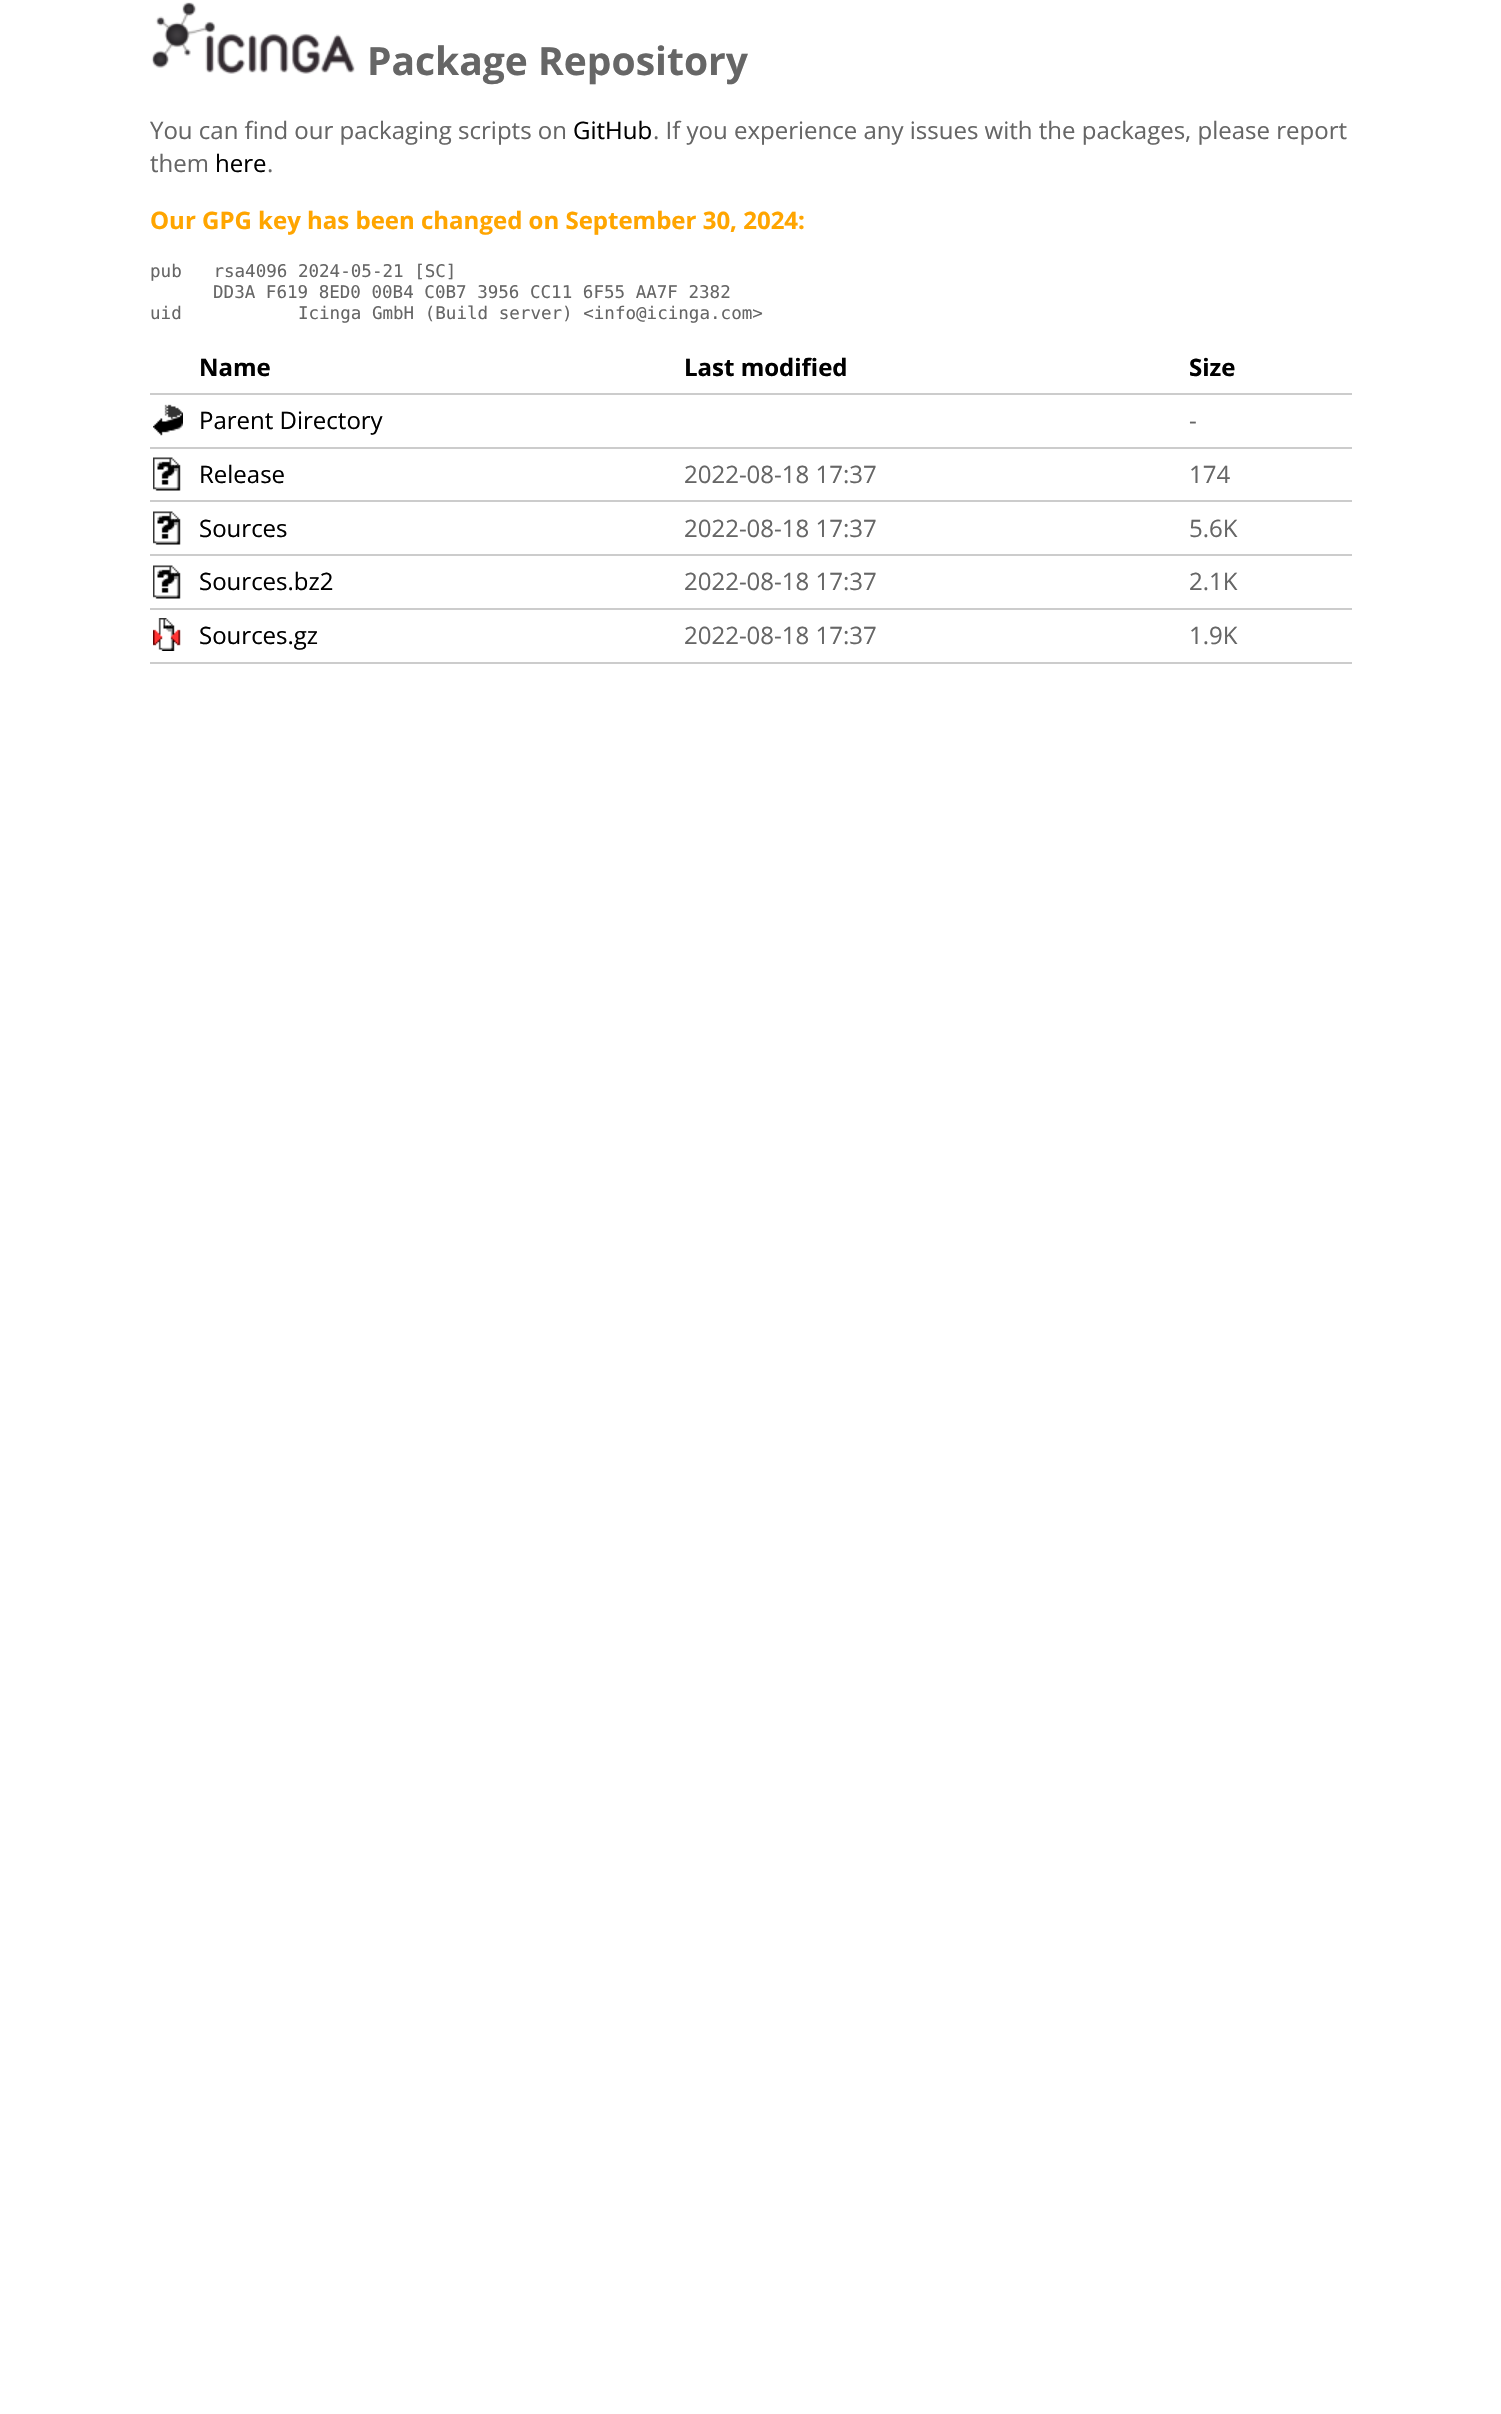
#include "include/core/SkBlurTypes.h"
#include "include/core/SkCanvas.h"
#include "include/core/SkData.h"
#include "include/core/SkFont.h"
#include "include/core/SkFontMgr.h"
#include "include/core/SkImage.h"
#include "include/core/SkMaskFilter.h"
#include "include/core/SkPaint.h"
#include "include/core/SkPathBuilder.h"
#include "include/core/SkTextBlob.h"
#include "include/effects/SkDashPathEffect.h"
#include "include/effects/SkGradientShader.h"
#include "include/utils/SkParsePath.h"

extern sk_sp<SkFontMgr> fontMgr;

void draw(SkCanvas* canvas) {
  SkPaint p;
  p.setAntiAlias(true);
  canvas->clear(SK_ColorWHITE);
  canvas->drawImageRect(SkImages::DeferredFromEncodedData(SkData::MakeFromFileName("images/1.png")), SkRect::MakeLTRB(151, 2, 355, 74), SkSamplingOptions());
  p.setColor(SkColorSetRGB(204, 204, 204));
  canvas->drawRect(SkRect::MakeLTRB(150, 393, 1352, 395), p);
  canvas->drawImageRect(SkImages::DeferredFromEncodedData(SkData::MakeFromFileName("images/2.png")), SkRect::MakeLTRB(153, 404, 183, 436), SkSamplingOptions());
  canvas->drawRect(SkRect::MakeLTRB(150, 447, 1352, 449), p);
  canvas->drawImageRect(SkImages::DeferredFromEncodedData(SkData::MakeFromFileName("images/3.png")), SkRect::MakeLTRB(153, 457, 181, 491), SkSamplingOptions());
  canvas->drawRect(SkRect::MakeLTRB(150, 500, 1352, 502), p);
  canvas->drawImageRect(SkImages::DeferredFromEncodedData(SkData::MakeFromFileName("images/3.png")), SkRect::MakeLTRB(153, 511, 181, 545), SkSamplingOptions());
  canvas->drawRect(SkRect::MakeLTRB(150, 554, 1352, 556), p);
  canvas->drawImageRect(SkImages::DeferredFromEncodedData(SkData::MakeFromFileName("images/3.png")), SkRect::MakeLTRB(153, 565, 181, 599), SkSamplingOptions());
  canvas->drawRect(SkRect::MakeLTRB(150, 608, 1352, 610), p);
  canvas->drawImageRect(SkImages::DeferredFromEncodedData(SkData::MakeFromFileName("images/4.png")), SkRect::MakeLTRB(153, 618, 181, 651), SkSamplingOptions());
  canvas->drawRect(SkRect::MakeLTRB(150, 662, 1352, 664), p);
  SkFont font1(fontMgr->matchFamilyStyle("Open Sans", SkFontStyle::Bold()), 39);
  font1.setSubpixel(true);
  p.setColor(SkColorSetRGB(102, 102, 102));
  canvas->drawString("Package Repository", 367, 75, font1, p);
  SkFont font2(fontMgr->matchFamilyStyle("Open Sans", SkFontStyle::Normal()), 24);
  font2.setSubpixel(true);
  canvas->drawString("You can find our packaging scripts on", 150, 139, font2, p);
  p.setColor(SK_ColorBLACK);
  canvas->drawString("GitHub", 573, 139, font2, p);
  p.setColor(SkColorSetRGB(102, 102, 102));
  canvas->drawString(". If you experience any issues with the packages, please report", 653, 139, font2, p);
  canvas->drawString("them", 150, 172, font2, p);
  p.setColor(SK_ColorBLACK);
  canvas->drawString("here", 215, 172, font2, p);
  p.setColor(SkColorSetRGB(102, 102, 102));
  canvas->drawString(".", 267, 172, font2, p);
  SkFont font3(fontMgr->matchFamilyStyle("Open Sans", SkFontStyle::Bold()), 24);
  font3.setSubpixel(true);
  p.setColor(SkColorSetRGB(255, 165, 0));
  canvas->drawString("Our GPG key has been changed on September 30, 2024:", 150, 229, font3, p);
  SkFont font4(fontMgr->matchFamilyStyle("DejaVu Sans Mono", SkFontStyle::Normal()), 17.55f);
  font4.setSubpixel(true);
  p.setColor(SkColorSetRGB(102, 102, 102));
  canvas->drawString("pub   rsa4096 2024-05-21 [SC]", 150, 277, font4, p);
  canvas->drawString("DD3A F619 8ED0 00B4 C0B7 3956 CC11 6F55 AA7F 2382", 213, 298, font4, p);
  canvas->drawString("uid           Icinga GmbH (Build server) <info@icinga.com>", 150, 319, font4, p);
  p.setColor(SK_ColorBLACK);
  canvas->drawString("Name", 199, 376, font3, p);
  canvas->drawString("Last modified", 684, 376, font3, p);
  canvas->drawString("Size", 1189, 376, font3, p);
  canvas->drawString("Parent Directory", 199, 429, font2, p);
  p.setColor(SkColorSetRGB(102, 102, 102));
  canvas->drawString("-", 1189, 429, font2, p);
  p.setColor(SK_ColorBLACK);
  canvas->drawString("Release", 199, 483, font2, p);
  p.setColor(SkColorSetRGB(102, 102, 102));
  canvas->drawString("2022-08-18 17:37", 684, 483, font2, p);
  canvas->drawString("174", 1189, 483, font2, p);
  p.setColor(SK_ColorBLACK);
  canvas->drawString("Sources", 199, 537, font2, p);
  p.setColor(SkColorSetRGB(102, 102, 102));
  canvas->drawString("2022-08-18 17:37", 684, 537, font2, p);
  canvas->drawString("5.6K", 1189, 537, font2, p);
  p.setColor(SK_ColorBLACK);
  canvas->drawString("Sources.bz2", 199, 590, font2, p);
  p.setColor(SkColorSetRGB(102, 102, 102));
  canvas->drawString("2022-08-18 17:37", 684, 590, font2, p);
  canvas->drawString("2.1K", 1189, 590, font2, p);
  p.setColor(SK_ColorBLACK);
  canvas->drawString("Sources.gz", 199, 644, font2, p);
  p.setColor(SkColorSetRGB(102, 102, 102));
  canvas->drawString("2022-08-18 17:37", 684, 644, font2, p);
  canvas->drawString("1.9K", 1189, 644, font2, p);
}
